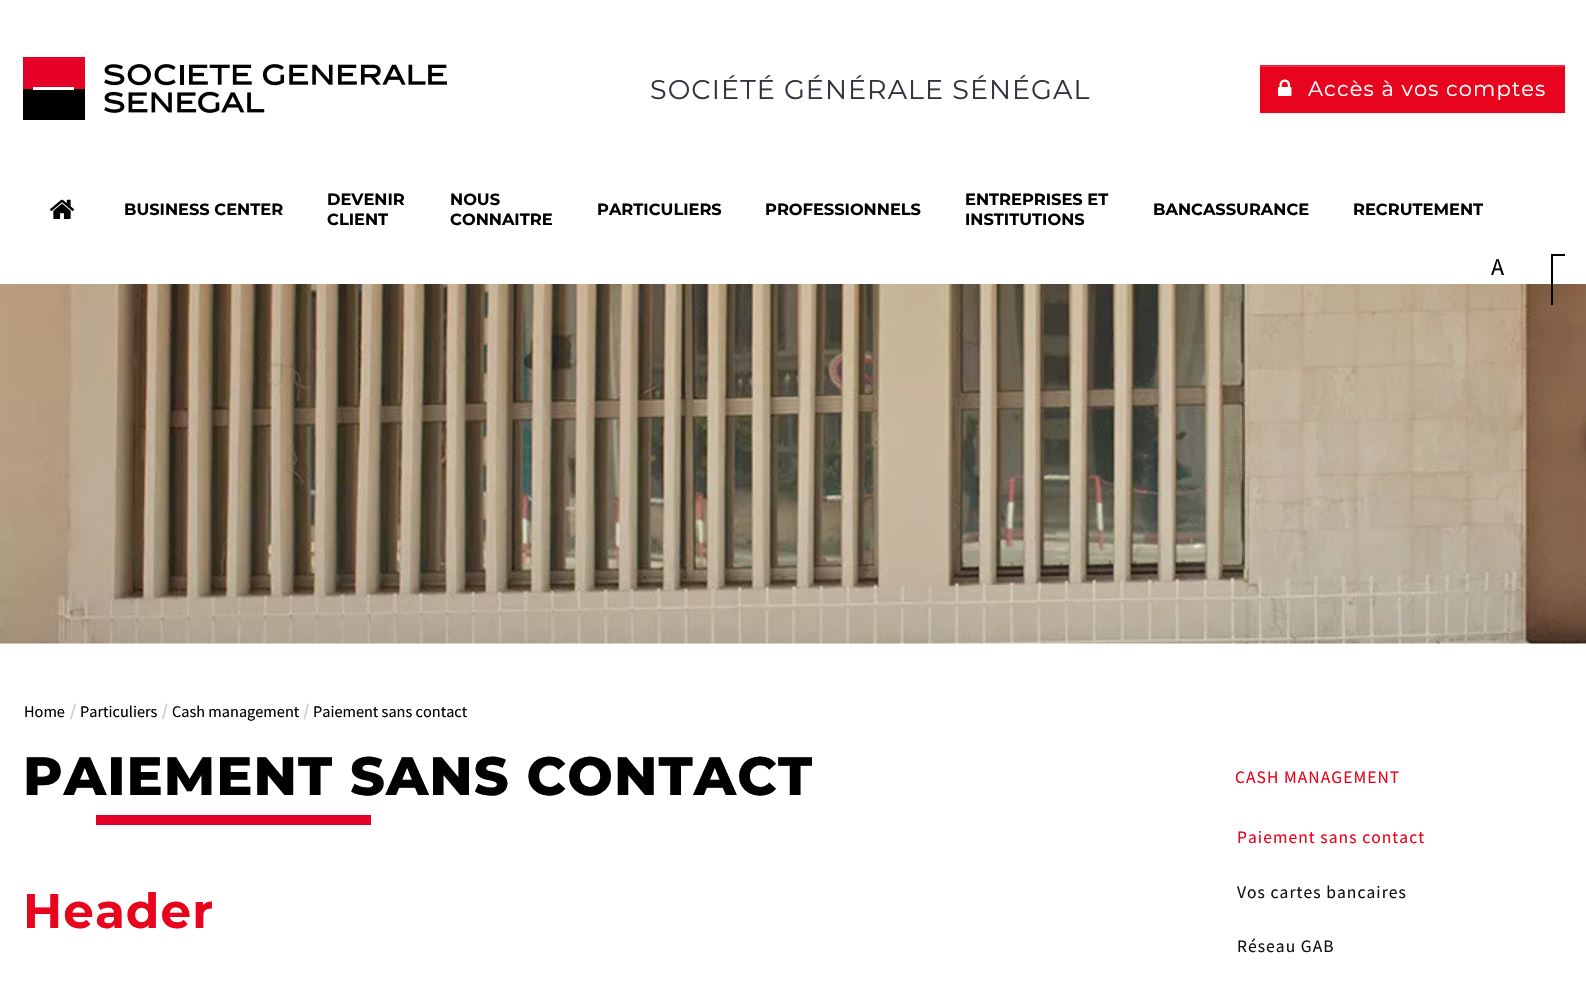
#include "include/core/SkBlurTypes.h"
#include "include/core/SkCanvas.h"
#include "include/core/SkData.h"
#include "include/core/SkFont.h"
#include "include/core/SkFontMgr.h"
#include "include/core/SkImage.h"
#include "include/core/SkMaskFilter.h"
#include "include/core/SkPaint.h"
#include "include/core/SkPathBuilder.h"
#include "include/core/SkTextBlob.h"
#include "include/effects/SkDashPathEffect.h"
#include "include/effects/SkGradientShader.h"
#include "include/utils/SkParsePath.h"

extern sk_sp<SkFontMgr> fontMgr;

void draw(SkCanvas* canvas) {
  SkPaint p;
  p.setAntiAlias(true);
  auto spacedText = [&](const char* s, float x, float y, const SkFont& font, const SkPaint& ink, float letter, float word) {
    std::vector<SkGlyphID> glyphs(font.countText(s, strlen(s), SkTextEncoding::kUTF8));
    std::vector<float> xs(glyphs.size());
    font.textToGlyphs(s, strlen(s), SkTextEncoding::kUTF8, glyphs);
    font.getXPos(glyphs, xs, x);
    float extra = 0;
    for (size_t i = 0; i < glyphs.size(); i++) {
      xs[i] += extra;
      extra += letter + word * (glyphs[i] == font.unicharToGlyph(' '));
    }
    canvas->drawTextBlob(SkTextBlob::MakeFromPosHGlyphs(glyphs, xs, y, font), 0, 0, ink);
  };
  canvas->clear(SK_ColorWHITE);
  canvas->drawImageRect(SkImages::DeferredFromEncodedData(SkData::MakeFromFileName("images/1.png")), SkRect::MakeLTRB(23, 57, 447, 120), SkSamplingOptions());
  p.setColor(SkColorSetARGB(18, 0, 0, 0));
  p.setMaskFilter(SkMaskFilter::MakeBlur(kNormal_SkBlurStyle, 1));
  canvas->drawRect(SkRect::MakeLTRB(1260, 66, 1565, 114), p);
  p.setMaskFilter(nullptr);
  p.setColor(SkColorSetRGB(233, 4, 30));
  canvas->drawRect(SkRect::MakeLTRB(1260, 67, 1565, 113), p);
  p.setColor(SkColorSetRGB(236, 42, 64));
  canvas->drawRect(SkRect::MakeLTRB(1260, 65, 1565, 67), p);
  canvas->drawImageRect(SkImages::DeferredFromEncodedData(SkData::MakeFromFileName("images/2.png")), SkRect::MakeLTRB(1278, 79, 1292, 96), SkSamplingOptions());
  canvas->drawImageRect(SkImages::DeferredFromEncodedData(SkData::MakeFromFileName("images/3.png")), SkRect::MakeLTRB(49, 199, 75, 219), SkSamplingOptions());
  canvas->drawImageRect(SkImages::DeferredFromEncodedData(SkData::MakeFromFileName("images/4.png")), SkRect::MakeLTRB(0, 284, 1586, 644), SkSamplingOptions());
  canvas->save();
  canvas->clipRect(SkRect::MakeLTRB(1524, 227, 1565, 305));
  p.setStyle(SkPaint::kStroke_Style);
  p.setStrokeWidth(2);
  p.setColor(SK_ColorBLACK);
  canvas->drawRect(SkRect::MakeLTRB(1552, 255, 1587, 797), p);
  canvas->restore();
  p.setStyle(SkPaint::kFill_Style);
  p.setColor(SkColorSetRGB(204, 204, 204));
  canvas->drawPath(SkPathBuilder().moveTo(74.5f, 703.5f).lineTo(76, 704).lineTo(71.5f, 719.5f).lineTo(70, 719).close().detach(), p);
  canvas->drawPath(SkPathBuilder().moveTo(166, 703.5f).lineTo(167.5f, 704).lineTo(163.5f, 719.5f).lineTo(162, 719).close().detach(), p);
  canvas->drawPath(SkPathBuilder().moveTo(307.5f, 703.5f).lineTo(309, 704).lineTo(305, 719.5f).lineTo(303.5f, 719).close().detach(), p);
  p.setColor(SkColorSetRGB(230, 0, 40));
  canvas->drawRect(SkRect::MakeLTRB(96, 815, 371, 825), p);
  SkFont font1(fontMgr->matchFamilyStyle("Montserrat", SkFontStyle::Normal()), 27);
  font1.setSubpixel(true);
  p.setColor(SkColorSetRGB(48, 52, 62));
  spacedText("SOCIÉTÉ GÉNÉRALE SÉNÉGAL", 650, 99, font1, p, 1.05f, 0);
  SkFont font2(fontMgr->matchFamilyStyle("Montserrat", SkFontStyle::Normal()), 21);
  font2.setSubpixel(true);
  p.setColor(SK_ColorWHITE);
  spacedText("Accès à vos comptes", 1308, 96, font2, p, 1.05f, 0);
  SkFont font3(fontMgr->matchFamilyStyle("Montserrat", SkFontStyle::Bold()), 16.25f);
  font3.setSubpixel(true);
  p.setColor(SK_ColorBLACK);
  canvas->drawString("BUSINESS CENTER", 124, 215, font3, p);
  canvas->drawString("DEVENIR", 327, 205, font3, p);
  canvas->drawString("CLIENT", 327, 225, font3, p);
  canvas->drawString("NOUS", 450, 205, font3, p);
  canvas->drawString("CONNAITRE", 450, 225, font3, p);
  canvas->drawString("PARTICULIERS", 597, 215, font3, p);
  canvas->drawString("PROFESSIONNELS", 765, 215, font3, p);
  canvas->drawString("ENTREPRISES ET", 965, 205, font3, p);
  canvas->drawString("INSTITUTIONS", 965, 225, font3, p);
  canvas->drawString("BANCASSURANCE", 1153, 215, font3, p);
  canvas->drawString("RECRUTEMENT", 1353, 215, font3, p);
  SkFont font4(fontMgr->matchFamilyStyle("Source Sans Pro", SkFontStyle::Normal()), 24);
  font4.setSubpixel(true);
  spacedText("A", 1491, 275, font4, p, 1.05f, 0);
  SkFont font5(fontMgr->matchFamilyStyle("Source Sans Pro", SkFontStyle::Normal()), 16.25f);
  font5.setSubpixel(true);
  canvas->drawString("Home", 24, 717, font5, p);
  canvas->drawString("Particuliers", 80, 717, font5, p);
  canvas->drawString("Cash management", 172, 717, font5, p);
  canvas->drawString("Paiement sans contact", 313, 717, font5, p);
  SkFont font6(fontMgr->matchFamilyStyle("Montserrat", SkFontStyle(800, SkFontStyle::kNormal_Width, SkFontStyle::kUpright_Slant)), 53.9f);
  font6.setSubpixel(true);
  spacedText("PAIEMENT SANS CONTACT", 23, 795, font6, p, 1.05f, 0);
  SkFont font7(fontMgr->matchFamilyStyle("Montserrat", SkFontStyle::Bold()), 48.5f);
  font7.setSubpixel(true);
  p.setColor(SkColorSetRGB(233, 4, 30));
  spacedText("Header", 23, 928, font7, p, 1.05f, 0);
  SkFont font8(fontMgr->matchFamilyStyle("Source Sans Pro", SkFontStyle::Normal()), 17.5f);
  font8.setSubpixel(true);
  spacedText("CASH MANAGEMENT", 1235, 783, font8, p, 1.05f, 0);
  spacedText("Paiement sans contact", 1237, 843, font8, p, 1.05f, 0);
  p.setColor(SkColorSetRGB(17, 17, 17));
  spacedText("Vos cartes bancaires", 1237, 898, font8, p, 1.05f, 0);
  spacedText("Réseau GAB", 1237, 952, font8, p, 1.05f, 0);
}
